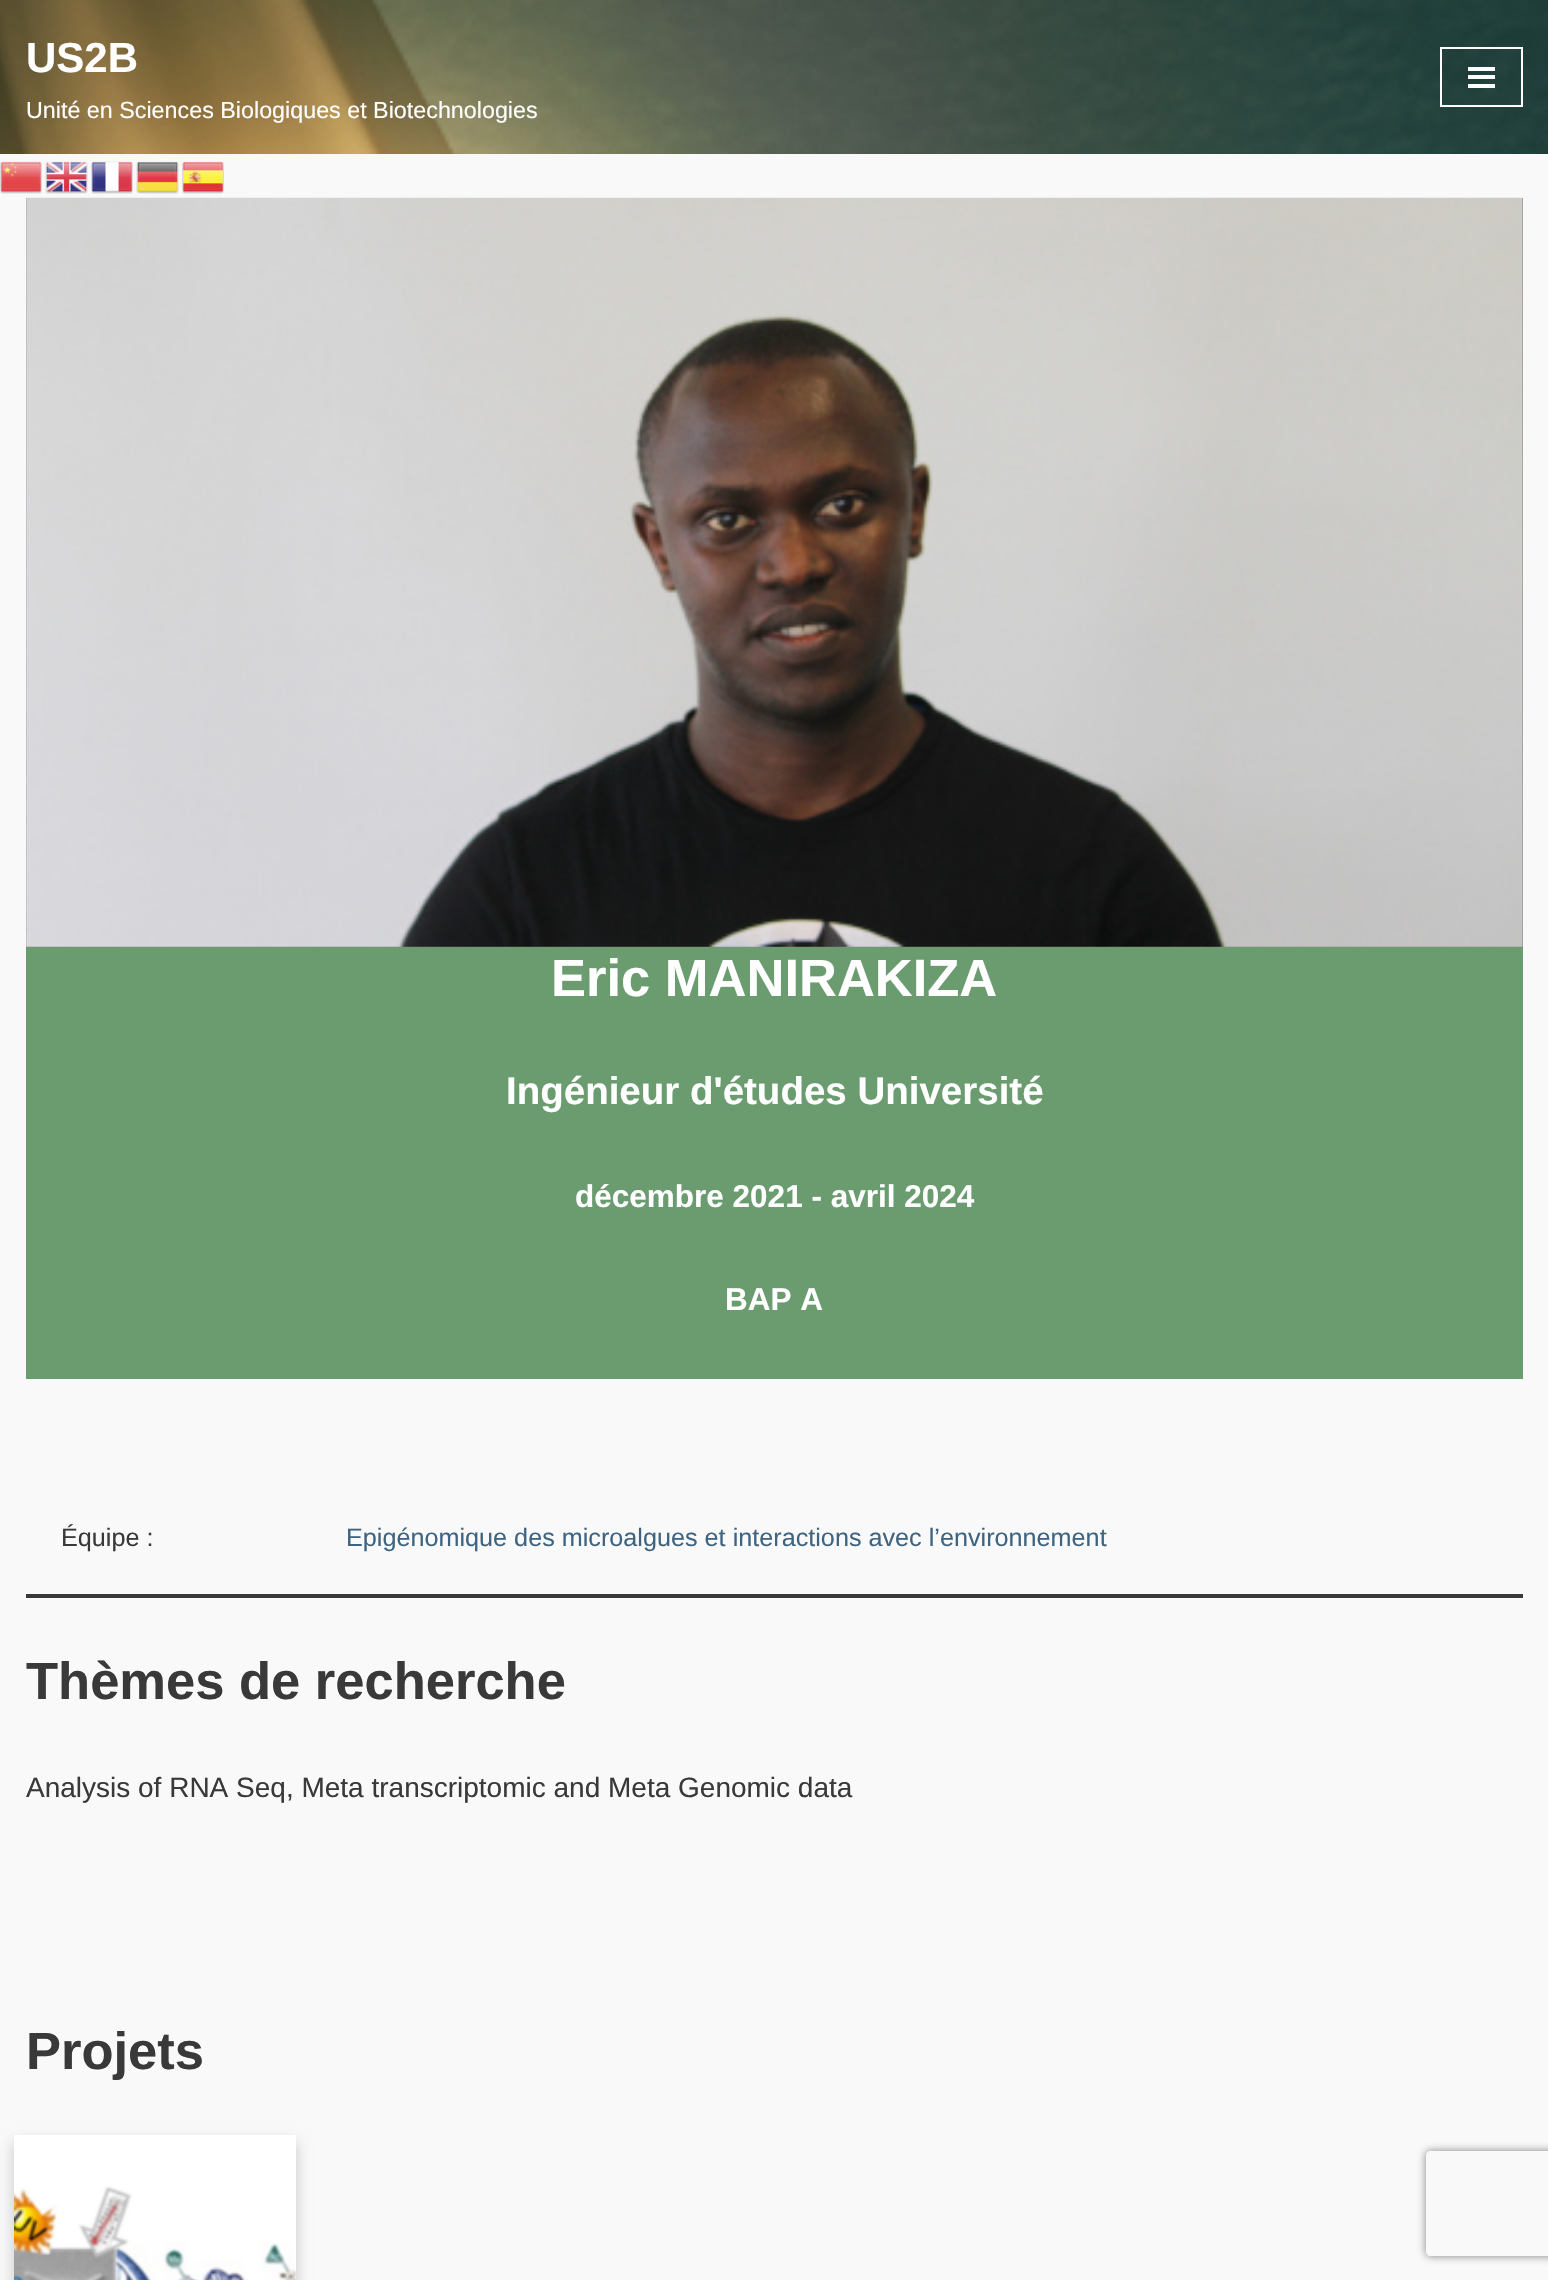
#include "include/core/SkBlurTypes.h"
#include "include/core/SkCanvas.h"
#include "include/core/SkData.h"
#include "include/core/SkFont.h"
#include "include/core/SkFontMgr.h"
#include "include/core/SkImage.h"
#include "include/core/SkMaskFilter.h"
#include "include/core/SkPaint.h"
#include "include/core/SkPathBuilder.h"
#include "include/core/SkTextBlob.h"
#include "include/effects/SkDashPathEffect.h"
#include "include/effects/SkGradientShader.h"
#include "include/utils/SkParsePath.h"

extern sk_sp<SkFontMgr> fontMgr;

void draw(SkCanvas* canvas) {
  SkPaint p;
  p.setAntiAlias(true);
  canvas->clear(SkColorSetRGB(249, 249, 249));
  canvas->drawImageRect(SkImages::DeferredFromEncodedData(SkData::MakeFromFileName("images/1.png")), SkRect::MakeLTRB(0, 0, 1548, 154), SkSamplingOptions());
  p.setStyle(SkPaint::kStroke_Style);
  p.setStrokeWidth(2);
  p.setColor(SK_ColorWHITE);
  canvas->drawRect(SkRect::MakeLTRB(1441, 48, 1522, 106), p);
  p.setStyle(SkPaint::kFill_Style);
  canvas->drawRect(SkRect::MakeLTRB(1468, 67, 1495, 71), p);
  canvas->drawRect(SkRect::MakeLTRB(1468, 75, 1495, 79), p);
  canvas->drawRect(SkRect::MakeLTRB(1468, 84, 1495, 88), p);
  canvas->drawImageRect(SkImages::DeferredFromEncodedData(SkData::MakeFromFileName("images/2.png")), SkRect::MakeLTRB(0, 161, 42, 194), SkSamplingOptions());
  canvas->drawImageRect(SkImages::DeferredFromEncodedData(SkData::MakeFromFileName("images/3.png")), SkRect::MakeLTRB(45, 161, 88, 194), SkSamplingOptions());
  canvas->drawImageRect(SkImages::DeferredFromEncodedData(SkData::MakeFromFileName("images/4.png")), SkRect::MakeLTRB(91, 161, 133, 194), SkSamplingOptions());
  canvas->drawImageRect(SkImages::DeferredFromEncodedData(SkData::MakeFromFileName("images/5.png")), SkRect::MakeLTRB(136, 161, 179, 194), SkSamplingOptions());
  canvas->drawImageRect(SkImages::DeferredFromEncodedData(SkData::MakeFromFileName("images/6.png")), SkRect::MakeLTRB(182, 161, 224, 194), SkSamplingOptions());
  p.setColor(SkColorSetRGB(128, 128, 128));
  canvas->drawRect(SkRect::MakeLTRB(26, 198, 1523, 947), p);
  canvas->drawImageRect(SkImages::DeferredFromEncodedData(SkData::MakeFromFileName("images/7.png")), SkRect::MakeLTRB(26, 197, 1523, 947), SkSamplingOptions());
  p.setColor(SkColorSetRGB(106, 156, 112));
  canvas->drawRect(SkRect::MakeLTRB(26, 947, 1523, 1379), p);
  p.setColor(SkColorSetRGB(57, 57, 57));
  canvas->drawRect(SkRect::MakeLTRB(26, 1594, 1523, 1598), p);
  p.setColor(SkColorSetARGB(51, 0, 0, 0));
  p.setMaskFilter(SkMaskFilter::MakeBlur(kNormal_SkBlurStyle, 7));
  canvas->drawRect(SkRect::MakeLTRB(14, 2142, 296, 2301), p);
  p.setMaskFilter(nullptr);
  p.setColor(SK_ColorWHITE);
  canvas->drawRect(SkRect::MakeLTRB(14, 2135, 296, 2280), p);
  canvas->drawImageRect(SkImages::DeferredFromEncodedData(SkData::MakeFromFileName("images/8.png")), SkRect::MakeLTRB(14, 2186, 296, 2280), SkSamplingOptions());
  canvas->save();
  canvas->clipPath(SkPathBuilder(SkPathFillType::kEvenOdd).moveTo(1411, 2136).lineTo(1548, 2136).lineTo(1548, 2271).lineTo(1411, 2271).close().moveTo(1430, 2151).lineTo(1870, 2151).cubicTo(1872, 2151, 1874, 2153, 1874, 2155).lineTo(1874, 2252).cubicTo(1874, 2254, 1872, 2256, 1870, 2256).lineTo(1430, 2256).cubicTo(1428, 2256, 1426, 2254, 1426, 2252).lineTo(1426, 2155).cubicTo(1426, 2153, 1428, 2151, 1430, 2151).close().detach(), true);
  p.setColor(SkColorSetRGB(128, 128, 128));
  p.setMaskFilter(SkMaskFilter::MakeBlur(kNormal_SkBlurStyle, 4.5f));
  canvas->drawRoundRect(SkRect::MakeLTRB(1426, 2151, 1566, 2256), 4, 4, p);
  p.setMaskFilter(nullptr);
  canvas->restore();
  SkFont font1(fontMgr->matchFamilyStyle("Liberation Sans", SkFontStyle::Bold()), 42);
  font1.setSubpixel(true);
  p.setColor(SK_ColorWHITE);
  canvas->drawString("US2B", 26, 72, font1, p);
  SkFont font2(fontMgr->matchFamilyStyle("Liberation Sans", SkFontStyle::Normal()), 23.3f);
  font2.setSubpixel(true);
  canvas->drawString("Unité en Sciences Biologiques et Biotechnologies", 26, 118, font2, p);
  SkFont font3(fontMgr->matchFamilyStyle("Liberation Sans", SkFontStyle::Bold()), 52.5f);
  font3.setSubpixel(true);
  canvas->drawString("Eric MANIRAKIZA", 551, 996, font3, p);
  SkFont font4(fontMgr->matchFamilyStyle("Liberation Sans", SkFontStyle::Bold()), 38.5f);
  font4.setSubpixel(true);
  canvas->drawString("Ingénieur d'études Université", 506, 1104, font4, p);
  SkFont font5(fontMgr->matchFamilyStyle("Liberation Sans", SkFontStyle::Bold()), 31.5f);
  font5.setSubpixel(true);
  canvas->drawString("décembre 2021 - avril 2024", 575, 1207, font5, p);
  canvas->drawString("BAP A", 725, 1310, font5, p);
  SkFont font6(fontMgr->matchFamilyStyle("Liberation Sans", SkFontStyle::Normal()), 25.2f);
  font6.setSubpixel(true);
  p.setColor(SkColorSetRGB(57, 57, 57));
  canvas->drawString("Équipe :", 61, 1546, font6, p);
  p.setColor(SkColorSetRGB(62, 100, 129));
  canvas->drawString("Epigénomique des microalgues et interactions avec l’environnement", 346, 1546, font6, p);
  p.setColor(SkColorSetRGB(57, 57, 57));
  canvas->drawString("Thèmes de recherche", 26, 1699, font3, p);
  SkFont font7(fontMgr->matchFamilyStyle("Liberation Sans", SkFontStyle::Normal()), 28);
  font7.setSubpixel(true);
  canvas->drawString("Analysis of RNA Seq, Meta transcriptomic and Meta Genomic data", 26, 1797, font7, p);
  canvas->drawString("Projets", 26, 2069, font3, p);
}
